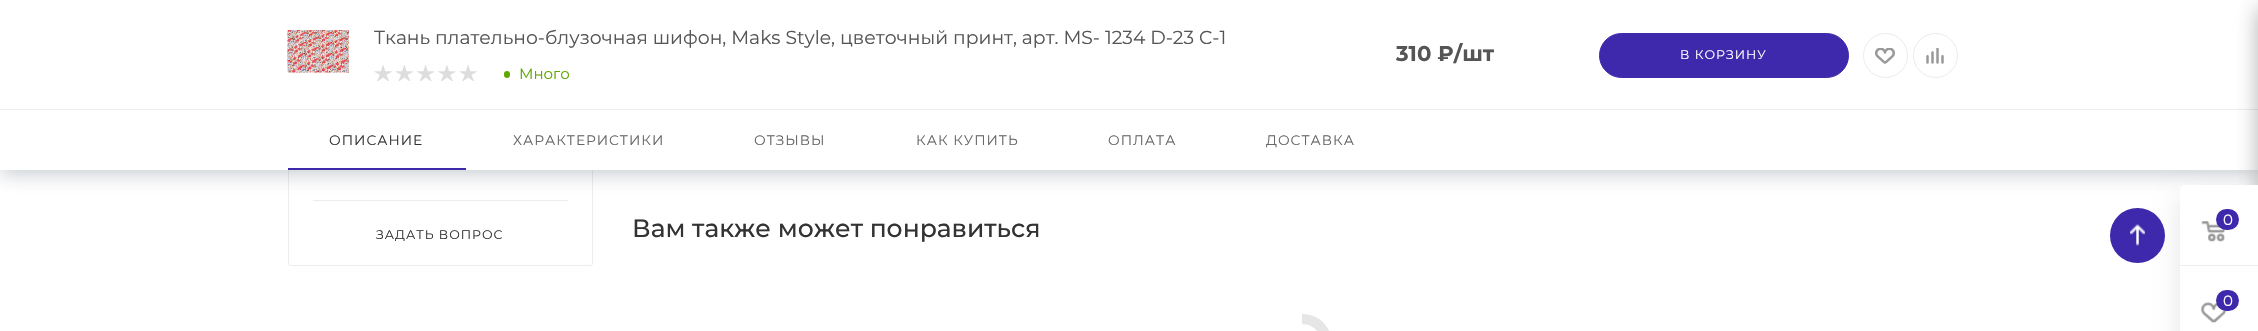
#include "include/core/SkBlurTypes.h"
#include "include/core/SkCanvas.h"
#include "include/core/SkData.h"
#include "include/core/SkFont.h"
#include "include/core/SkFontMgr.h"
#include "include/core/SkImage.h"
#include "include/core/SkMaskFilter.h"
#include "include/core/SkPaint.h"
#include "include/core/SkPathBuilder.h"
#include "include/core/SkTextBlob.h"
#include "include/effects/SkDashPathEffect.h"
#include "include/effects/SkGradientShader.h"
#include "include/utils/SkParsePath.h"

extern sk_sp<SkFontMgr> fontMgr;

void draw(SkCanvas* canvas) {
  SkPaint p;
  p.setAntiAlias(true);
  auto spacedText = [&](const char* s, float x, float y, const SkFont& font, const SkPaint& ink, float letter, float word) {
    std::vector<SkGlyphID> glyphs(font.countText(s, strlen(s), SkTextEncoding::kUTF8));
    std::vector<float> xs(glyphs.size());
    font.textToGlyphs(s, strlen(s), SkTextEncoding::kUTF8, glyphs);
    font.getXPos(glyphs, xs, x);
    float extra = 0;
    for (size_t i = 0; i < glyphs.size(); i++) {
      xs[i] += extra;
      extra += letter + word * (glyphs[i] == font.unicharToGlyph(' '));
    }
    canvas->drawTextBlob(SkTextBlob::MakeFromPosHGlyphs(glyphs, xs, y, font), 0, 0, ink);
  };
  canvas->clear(SK_ColorWHITE);
  p.setStyle(SkPaint::kStroke_Style);
  p.setStrokeWidth(1);
  p.setColor(SkColorSetRGB(236, 236, 236));
  canvas->drawRoundRect(SkRect::MakeLTRB(288.5f, -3.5f, 592.5f, 265.5f), 2, 2, p);
  p.setStyle(SkPaint::kFill_Style);
  canvas->drawRect(SkRect::MakeLTRB(313, 200, 568, 201), p);
  p.setColor(SkColorSetARGB(59, 32, 54, 74));
  p.setMaskFilter(SkMaskFilter::MakeBlur(kNormal_SkBlurStyle, 9));
  canvas->drawRect(SkRect::MakeLTRB(0, 114, 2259, 175), p);
  p.setMaskFilter(nullptr);
  p.setColor(SK_ColorWHITE);
  canvas->drawRect(SkRect::MakeLTRB(0, 0, 2258, 109), p);
  canvas->drawImageRect(SkImages::DeferredFromEncodedData(SkData::MakeFromFileName("images/1.png")), SkRect::MakeLTRB(287, 30, 349, 73), SkSamplingOptions());
  canvas->drawImageRect(SkImages::DeferredFromEncodedData(SkData::MakeFromFileName("images/2.png")), SkRect::MakeLTRB(374, 65, 392, 81), SkSamplingOptions());
  canvas->drawImageRect(SkImages::DeferredFromEncodedData(SkData::MakeFromFileName("images/3.png")), SkRect::MakeLTRB(395, 65, 413, 81), SkSamplingOptions());
  canvas->drawImageRect(SkImages::DeferredFromEncodedData(SkData::MakeFromFileName("images/4.png")), SkRect::MakeLTRB(417, 65, 435, 81), SkSamplingOptions());
  canvas->drawImageRect(SkImages::DeferredFromEncodedData(SkData::MakeFromFileName("images/5.png")), SkRect::MakeLTRB(438, 65, 456, 81), SkSamplingOptions());
  canvas->drawImageRect(SkImages::DeferredFromEncodedData(SkData::MakeFromFileName("images/2.png")), SkRect::MakeLTRB(459, 65, 477, 81), SkSamplingOptions());
  p.setColor(SkColorSetRGB(95, 168, 0));
  canvas->drawRoundRect(SkRect::MakeLTRB(504, 71, 510, 78), 3, 3, p);
  p.setColor(SkColorSetRGB(62, 40, 172));
  canvas->drawRoundRect(SkRect::MakeLTRB(1599.5f, 33.5f, 1848.5f, 77.5f), 22, 22, p);
  p.setStyle(SkPaint::kStroke_Style);
  canvas->drawRoundRect(SkRect::MakeLTRB(1599.5f, 33.5f, 1848.5f, 77.5f), 22, 22, p);
  p.setColor(SkColorSetRGB(236, 236, 236));
  canvas->drawCircle(1885.5f, 55.5f, 22, p);
  canvas->drawImageRect(SkImages::DeferredFromEncodedData(SkData::MakeFromFileName("images/6.png")), SkRect::MakeLTRB(1875, 48, 1895, 64), SkSamplingOptions());
  canvas->drawCircle(1935.5f, 55.5f, 22, p);
  canvas->drawImageRect(SkImages::DeferredFromEncodedData(SkData::MakeFromFileName("images/7.png")), SkRect::MakeLTRB(1926, 48, 1944, 64), SkSamplingOptions());
  p.setStyle(SkPaint::kFill_Style);
  p.setColor(SK_ColorWHITE);
  canvas->drawRect(SkRect::MakeLTRB(0, 110, 2258, 170), p);
  p.setColor(SkColorSetRGB(236, 236, 236));
  canvas->drawRect(SkRect::MakeLTRB(0, 109, 2258, 110), p);
  p.setColor(SkColorSetRGB(62, 40, 172));
  canvas->drawRect(SkRect::MakeLTRB(288, 168, 466, 170), p);
  p.setColor(SkColorSetRGB(230, 230, 230));
  canvas->drawPath(SkPathBuilder().moveTo(1302, 314).cubicTo(1329, 314, 1342, 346, 1324, 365).lineTo(1317, 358).cubicTo(1329, 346, 1320, 324, 1302, 324).close().detach(), p);
  p.setColor(SkColorSetRGB(62, 40, 172));
  canvas->drawCircle(2137.5f, 235.5f, 27.5f, p);
  canvas->drawImageRect(SkImages::DeferredFromEncodedData(SkData::MakeFromFileName("images/8.png")), SkRect::MakeLTRB(2130, 224, 2145, 246), SkSamplingOptions());
  p.setColor(SkColorSetARGB(102, 44, 44, 44));
  p.setMaskFilter(SkMaskFilter::MakeBlur(kNormal_SkBlurStyle, 11));
  canvas->drawRoundRect(SkRect::MakeLTRB(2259, 8, 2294, 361), 2.5f, 2.5f, p);
  p.setMaskFilter(nullptr);
  p.setColor(SkColorSetARGB(26, 0, 0, 0));
  p.setMaskFilter(SkMaskFilter::MakeBlur(kNormal_SkBlurStyle, 12.5f));
  canvas->drawRoundRect(SkRect::MakeLTRB(2180, 198, 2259, 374), 5, 5, p);
  p.setMaskFilter(nullptr);
  p.setColor(SK_ColorWHITE);
  canvas->drawPath(SkPathBuilder().moveTo(2185, 185).lineTo(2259, 185).lineTo(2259, 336).lineTo(2185, 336).cubicTo(2182, 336, 2180, 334, 2180, 331).lineTo(2180, 190).cubicTo(2180, 187, 2182, 185, 2185, 185).close().detach(), p);
  p.setColor(SkColorSetRGB(236, 236, 236));
  canvas->drawRect(SkRect::MakeLTRB(2180, 265, 2258, 266), p);
  canvas->drawImageRect(SkImages::DeferredFromEncodedData(SkData::MakeFromFileName("images/9.png")), SkRect::MakeLTRB(2201, 221, 2226, 242), SkSamplingOptions());
  p.setColor(SkColorSetRGB(62, 40, 172));
  canvas->drawRoundRect(SkRect::MakeLTRB(2216, 209, 2239, 230), 10.5f, 10.5f, p);
  canvas->drawImageRect(SkImages::DeferredFromEncodedData(SkData::MakeFromFileName("images/10.png")), SkRect::MakeLTRB(2201, 302, 2227, 323), SkSamplingOptions());
  canvas->drawRoundRect(SkRect::MakeLTRB(2216, 290, 2239, 311), 10.5f, 10.5f, p);
  SkFont font1(fontMgr->matchFamilyStyle("Montserrat", SkFontStyle::Normal()), 18.75f);
  font1.setSubpixel(true);
  p.setColor(SkColorSetRGB(85, 85, 85));
  canvas->drawString("Ткань плательно-блузочная шифон, Maks Style, цветочный принт, арт. MS- 1234 D-23 C-1", 374, 44, font1, p);
  SkFont font2(fontMgr->matchFamilyStyle("Montserrat", SkFontStyle::Normal()), 15);
  font2.setSubpixel(true);
  p.setColor(SkColorSetRGB(95, 168, 0));
  canvas->drawString("Много", 519, 79, font2, p);
  SkFont font3(fontMgr->matchFamilyStyle("Montserrat", SkFontStyle::Bold()), 21.25f);
  font3.setSubpixel(true);
  p.setColor(SkColorSetRGB(85, 85, 85));
  canvas->drawString("310 ₽/шт", 1396, 61, font3, p);
  SkFont font4(fontMgr->matchFamilyStyle("Montserrat", SkFontStyle::Normal()), 12.5f);
  font4.setSubpixel(true);
  p.setColor(SK_ColorWHITE);
  spacedText("В КОРЗИНУ", 1680, 59, font4, p, 1, 0);
  SkFont font5(fontMgr->matchFamilyStyle("Montserrat", SkFontStyle::Normal()), 13.75f);
  font5.setSubpixel(true);
  p.setColor(SkColorSetRGB(51, 51, 51));
  spacedText("ОПИСАНИЕ", 329, 145, font5, p, 1, 0);
  p.setColor(SkColorSetRGB(102, 102, 102));
  spacedText("ХАРАКТЕРИСТИКИ", 513, 145, font5, p, 1, 0);
  spacedText("ОТЗЫВЫ", 754, 145, font5, p, 1, 0);
  spacedText("КАК КУПИТЬ", 916, 145, font5, p, 1, 0);
  spacedText("ОПЛАТА", 1108, 145, font5, p, 1, 0);
  spacedText("ДОСТАВКА", 1266, 145, font5, p, 1, 0);
  p.setColor(SkColorSetRGB(51, 51, 51));
  spacedText("ЗАДАТЬ ВОПРОС", 376, 239, font4, p, 1, 0);
  SkFont font6(fontMgr->matchFamilyStyle("Montserrat", SkFontStyle(500, SkFontStyle::kNormal_Width, SkFontStyle::kUpright_Slant)), 25);
  font6.setSubpixel(true);
  canvas->drawString("Вам также может понравиться", 632, 237, font6, p);
  p.setColor(SK_ColorWHITE);
  canvas->drawString("0", 2223, 225, font2, p);
  canvas->drawString("0", 2223, 306, font2, p);
}
